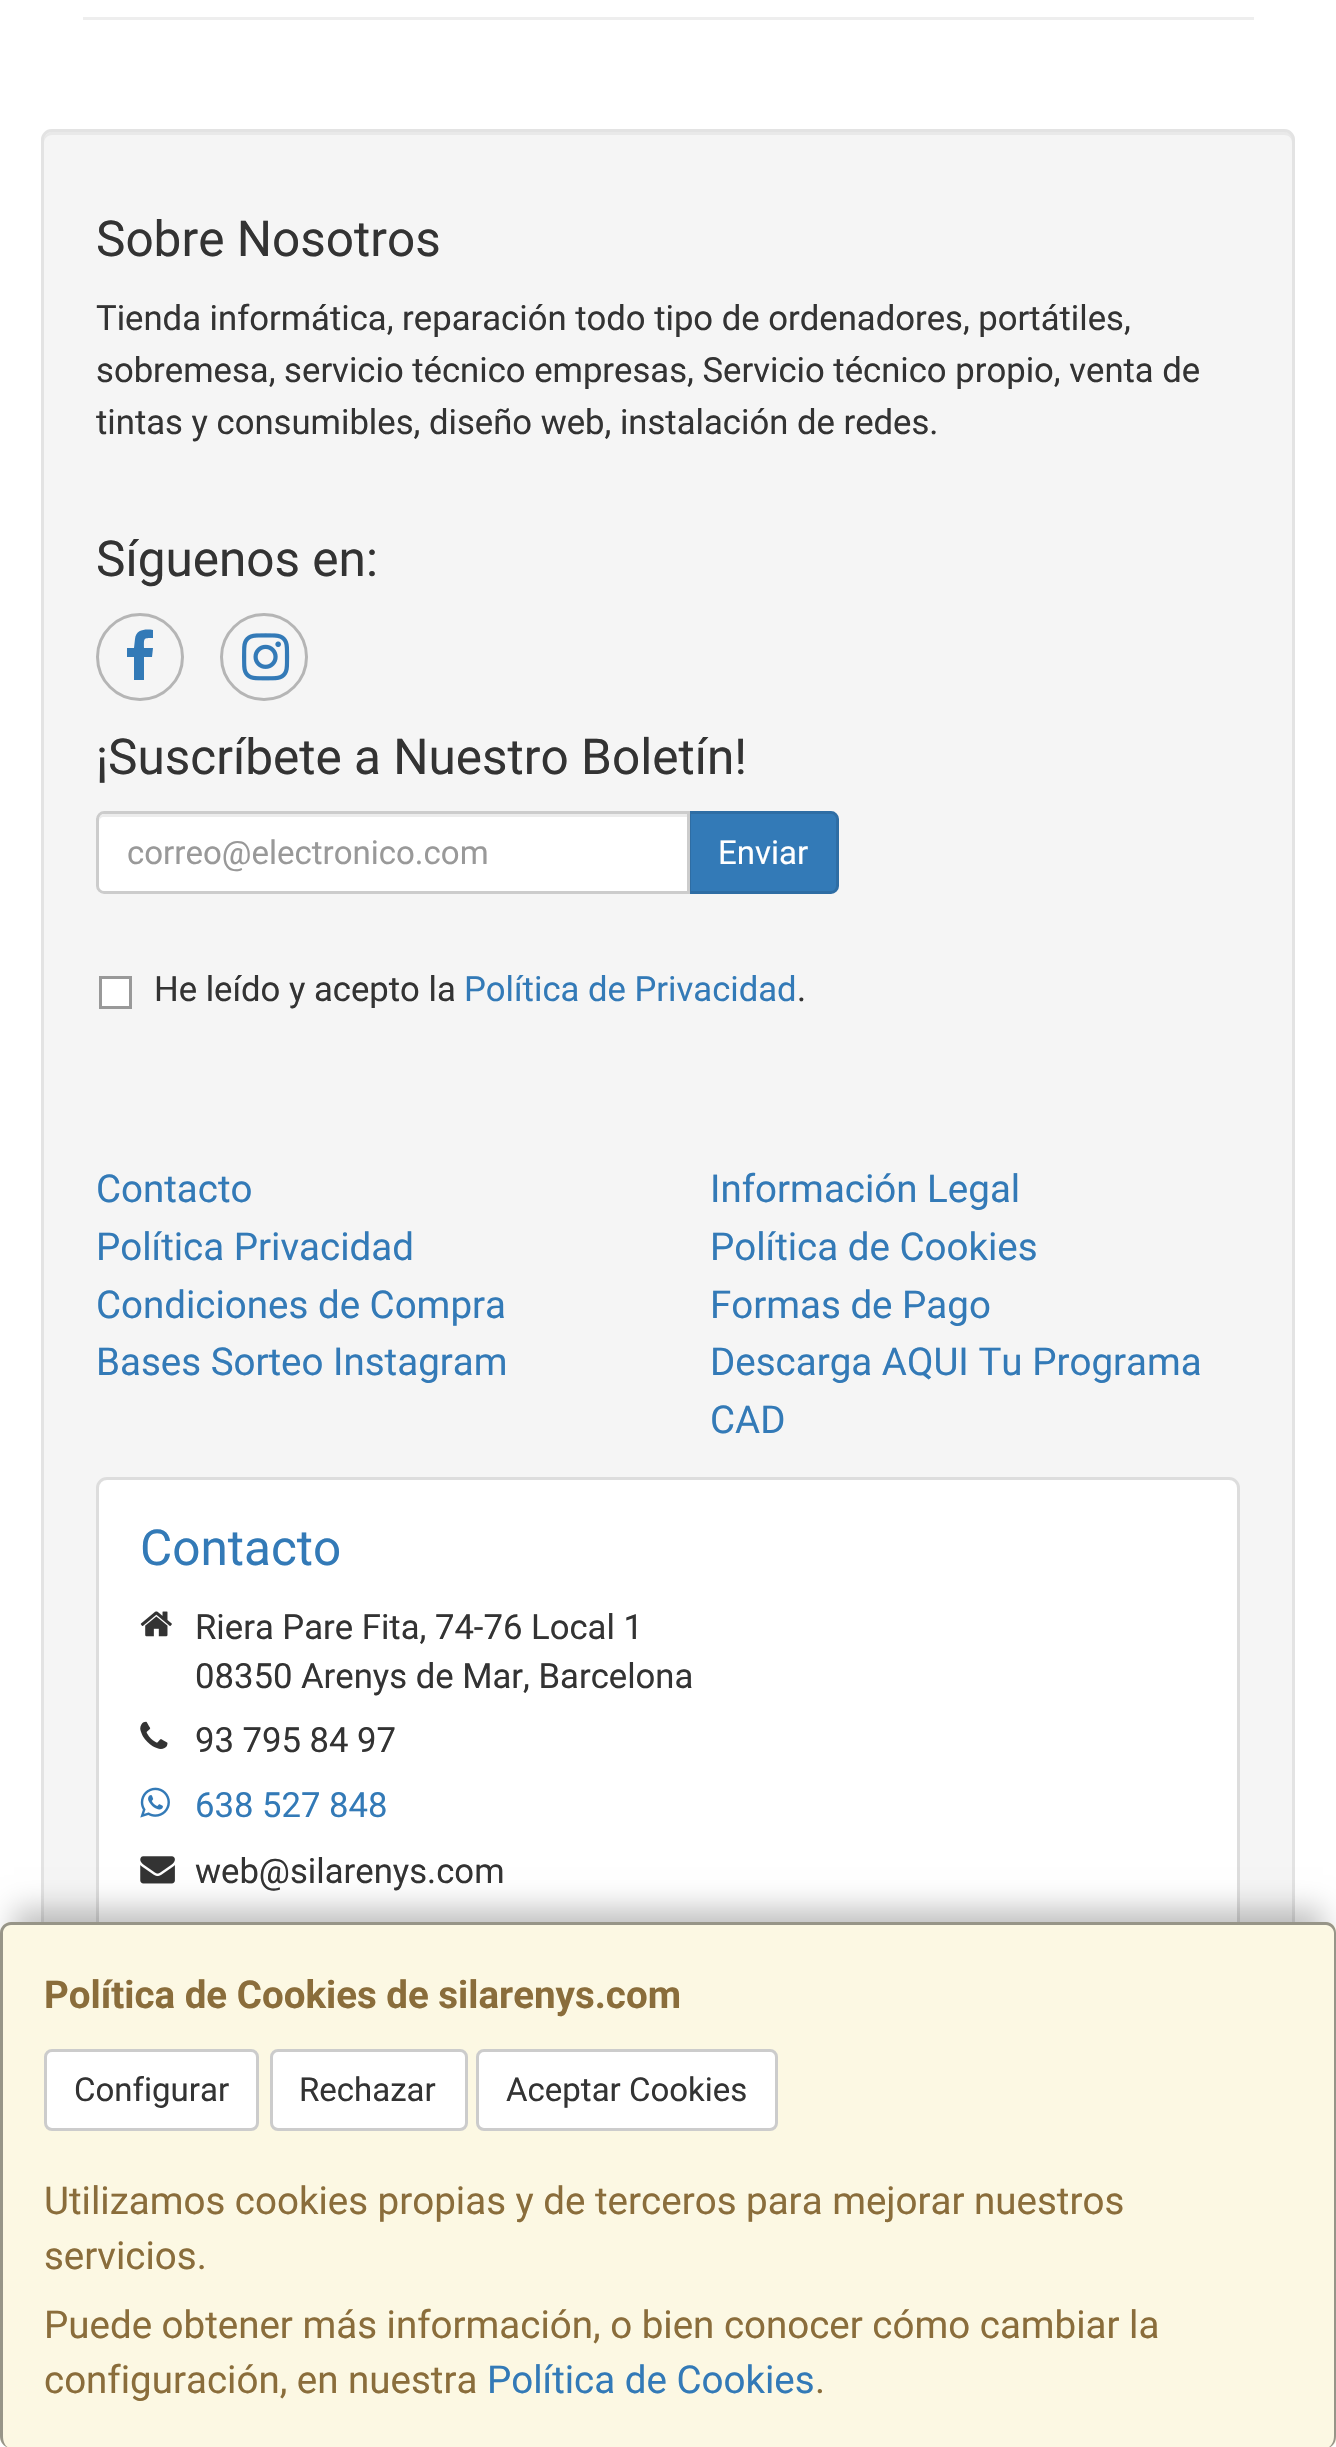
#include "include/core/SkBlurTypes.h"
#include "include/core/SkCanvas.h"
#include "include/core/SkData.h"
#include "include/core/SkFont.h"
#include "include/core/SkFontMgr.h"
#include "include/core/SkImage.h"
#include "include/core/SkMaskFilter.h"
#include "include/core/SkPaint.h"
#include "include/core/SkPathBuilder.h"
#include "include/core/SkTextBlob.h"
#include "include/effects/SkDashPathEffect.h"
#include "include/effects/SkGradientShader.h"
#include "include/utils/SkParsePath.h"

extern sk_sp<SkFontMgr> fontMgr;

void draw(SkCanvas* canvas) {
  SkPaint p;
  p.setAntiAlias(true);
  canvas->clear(SK_ColorWHITE);
  p.setColor(SkColorSetRGB(238, 238, 238));
  canvas->drawRect(SkRect::MakeLTRB(83, 17, 1254, 20), p);
  p.setColor(SkColorSetRGB(245, 245, 245));
  canvas->drawRoundRect(SkRect::MakeLTRB(41, 129, 1295, 2261), 11, 11, p);
  p.setColor(SkColorSetRGB(233, 233, 233));
  canvas->drawPath(SkPathBuilder().moveTo(52, 135).lineTo(1284, 135).cubicTo(1289, 135, 1292, 138, 1292, 143).lineTo(1292, 2254).cubicTo(1293, 2253, 1293, 2252, 1293, 2250).lineTo(1293, 140).cubicTo(1293, 136, 1289, 132, 1285, 132).lineTo(52, 132).cubicTo(48, 132, 44, 136, 44, 140).lineTo(44, 143).cubicTo(44, 138, 48, 135, 52, 135).close().detach(), p);
  p.setStyle(SkPaint::kStroke_Style);
  p.setStrokeWidth(3);
  p.setColor(SkColorSetRGB(227, 227, 227));
  canvas->drawRoundRect(SkRect::MakeLTRB(42.5f, 130.5f, 1293.5f, 2259.5f), 9.5f, 9.5f, p);
  p.setColor(SkColorSetRGB(181, 181, 181));
  canvas->drawCircle(140, 657, 42.5f, p);
  p.setStyle(SkPaint::kFill_Style);
  p.setColor(SkColorSetRGB(51, 122, 183));
  canvas->drawPath(SkPathBuilder().moveTo(153, 630).lineTo(153, 638).cubicTo(143, 638, 144, 638, 144, 648).lineTo(153, 648).lineTo(152, 657).lineTo(144, 657).lineTo(144, 680).lineTo(134, 680).lineTo(134, 657).lineTo(127, 657).lineTo(127, 648).lineTo(134, 648).lineTo(135, 639).cubicTo(136, 629, 146, 629, 153, 630).close().detach(), p);
  p.setStyle(SkPaint::kStroke_Style);
  p.setColor(SkColorSetRGB(181, 181, 181));
  canvas->drawCircle(264, 657, 42.5f, p);
  canvas->drawImageRect(SkImages::DeferredFromEncodedData(SkData::MakeFromFileName("images/1.png")), SkRect::MakeLTRB(242, 633, 290, 681), SkSamplingOptions());
  p.setStyle(SkPaint::kFill_Style);
  p.setColor(SkColorSetRGB(51, 122, 183));
  canvas->drawPath(SkPathBuilder().moveTo(689.5f, 812.5f).lineTo(831, 812.5f).cubicTo(834.5f, 812.5f, 837.5f, 815.5f, 837.5f, 819).lineTo(837.5f, 886).cubicTo(837.5f, 889.5f, 834.5f, 892.5f, 831, 892.5f).lineTo(689.5f, 892.5f).close().detach(), p);
  p.setStyle(SkPaint::kStroke_Style);
  p.setColor(SkColorSetRGB(46, 109, 164));
  canvas->drawPath(SkPathBuilder().moveTo(689.5f, 812.5f).lineTo(831, 812.5f).cubicTo(834.5f, 812.5f, 837.5f, 815.5f, 837.5f, 819).lineTo(837.5f, 886).cubicTo(837.5f, 889.5f, 834.5f, 892.5f, 831, 892.5f).lineTo(689.5f, 892.5f).close().detach(), p);
  p.setStyle(SkPaint::kFill_Style);
  p.setColor(SK_ColorWHITE);
  canvas->drawPath(SkPathBuilder().moveTo(104, 811).lineTo(690, 811).lineTo(690, 894).lineTo(104, 894).cubicTo(99.5f, 894, 96, 890.5f, 96, 886).lineTo(96, 819).cubicTo(96, 814.5f, 99.5f, 811, 104, 811).close().detach(), p);
  p.setColor(SkColorSetRGB(236, 236, 236));
  canvas->drawPath(SkPathBuilder().moveTo(104, 817).lineTo(688, 817).lineTo(688, 814).lineTo(105, 814).cubicTo(100, 814, 99, 818, 99, 822).cubicTo(99, 819, 101, 817, 104, 817).close().detach(), p);
  p.setStyle(SkPaint::kStroke_Style);
  p.setColor(SkColorSetRGB(204, 204, 204));
  canvas->drawPath(SkPathBuilder().moveTo(104, 812.5f).lineTo(688.5f, 812.5f).lineTo(688.5f, 892.5f).lineTo(104, 892.5f).cubicTo(100.5f, 892.5f, 97.5f, 889.5f, 97.5f, 886).lineTo(97.5f, 819).cubicTo(97.5f, 815.5f, 100.5f, 812.5f, 104, 812.5f).close().detach(), p);
  p.setStyle(SkPaint::kFill_Style);
  p.setColor(SK_ColorWHITE);
  canvas->drawRect(SkRect::MakeLTRB(100.5f, 977.5f, 130.5f, 1007.5f), p);
  p.setStyle(SkPaint::kStroke_Style);
  p.setColor(SkColorSetRGB(153, 153, 153));
  canvas->drawRect(SkRect::MakeLTRB(100.5f, 977.5f, 130.5f, 1007.5f), p);
  p.setStyle(SkPaint::kFill_Style);
  p.setColor(SK_ColorWHITE);
  canvas->drawRoundRect(SkRect::MakeLTRB(97.5f, 1478.5f, 1238.5f, 1942.5f), 9.5f, 9.5f, p);
  p.setStyle(SkPaint::kStroke_Style);
  p.setColor(SkColorSetRGB(221, 221, 221));
  canvas->drawRoundRect(SkRect::MakeLTRB(97.5f, 1478.5f, 1238.5f, 1942.5f), 9.5f, 9.5f, p);
  canvas->drawImageRect(SkImages::DeferredFromEncodedData(SkData::MakeFromFileName("images/2.png")), SkRect::MakeLTRB(140, 1611, 172, 1637), SkSamplingOptions());
  canvas->drawImageRect(SkImages::DeferredFromEncodedData(SkData::MakeFromFileName("images/3.png")), SkRect::MakeLTRB(140, 1721, 168, 1749), SkSamplingOptions());
  canvas->drawImageRect(SkImages::DeferredFromEncodedData(SkData::MakeFromFileName("images/4.png")), SkRect::MakeLTRB(140, 1787, 170, 1818), SkSamplingOptions());
  canvas->drawImageRect(SkImages::DeferredFromEncodedData(SkData::MakeFromFileName("images/5.png")), SkRect::MakeLTRB(140, 1856, 175, 1884), SkSamplingOptions());
  p.setStyle(SkPaint::kFill_Style);
  p.setColor(SkColorSetARGB(64, 0, 0, 0));
  p.setMaskFilter(SkMaskFilter::MakeBlur(kNormal_SkBlurStyle, 14));
  canvas->drawRect(SkRect::MakeLTRB(14, 1909, 1323, 2406), p);
  p.setMaskFilter(nullptr);
  p.setColor(SkColorSetRGB(252, 248, 227));
  canvas->drawRoundRect(SkRect::MakeLTRB(0, 1922, 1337, 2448), 11, 11, p);
  p.setColor(SkColorSetARGB(102, 0, 0, 0));
  canvas->drawPath(SkPathBuilder(SkPathFillType::kEvenOdd).moveTo(11, 1922).lineTo(1326, 1922).cubicTo(1332, 1922, 1336, 1927, 1336, 1933).lineTo(1336, 2436).cubicTo(1336, 2443, 1332, 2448, 1326, 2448).lineTo(11, 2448).cubicTo(5, 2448, 0, 2443, 0, 2436).lineTo(0, 1933).cubicTo(0, 1927, 5, 1922, 11, 1922).close().moveTo(11, 1925).lineTo(1326, 1925).cubicTo(1330, 1925, 1334, 1929, 1334, 1933).lineTo(1334, 2436).cubicTo(1334, 2443, 1330, 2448, 1326, 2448).lineTo(11, 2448).cubicTo(6, 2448, 3, 2443, 3, 2436).lineTo(3, 1933).cubicTo(3, 1929, 6, 1925, 11, 1925).close().detach(), p);
  p.setColor(SK_ColorWHITE);
  canvas->drawRoundRect(SkRect::MakeLTRB(45.5f, 2050.5f, 257.5f, 2129.5f), 6.5f, 6.5f, p);
  p.setStyle(SkPaint::kStroke_Style);
  p.setColor(SkColorSetRGB(204, 204, 204));
  canvas->drawRoundRect(SkRect::MakeLTRB(45.5f, 2050.5f, 257.5f, 2129.5f), 6.5f, 6.5f, p);
  p.setStyle(SkPaint::kFill_Style);
  p.setColor(SK_ColorWHITE);
  canvas->drawRoundRect(SkRect::MakeLTRB(271.5f, 2050.5f, 466.5f, 2129.5f), 6.5f, 6.5f, p);
  p.setStyle(SkPaint::kStroke_Style);
  p.setColor(SkColorSetRGB(204, 204, 204));
  canvas->drawRoundRect(SkRect::MakeLTRB(271.5f, 2050.5f, 466.5f, 2129.5f), 6.5f, 6.5f, p);
  p.setStyle(SkPaint::kFill_Style);
  p.setColor(SK_ColorWHITE);
  canvas->drawRoundRect(SkRect::MakeLTRB(477.5f, 2050.5f, 776.5f, 2129.5f), 6.5f, 6.5f, p);
  p.setStyle(SkPaint::kStroke_Style);
  p.setColor(SkColorSetRGB(204, 204, 204));
  canvas->drawRoundRect(SkRect::MakeLTRB(477.5f, 2050.5f, 776.5f, 2129.5f), 6.5f, 6.5f, p);
  SkFont font1(fontMgr->matchFamilyStyle("Roboto", SkFontStyle::Normal()), 49.5f);
  font1.setSubpixel(true);
  p.setStyle(SkPaint::kFill_Style);
  p.setColor(SkColorSetRGB(51, 51, 51));
  canvas->drawString("Sobre Nosotros", 96, 256, font1, p);
  SkFont font2(fontMgr->matchFamilyStyle("Roboto", SkFontStyle::Normal()), 34.65f);
  font2.setSubpixel(true);
  canvas->drawString("Tienda informática, reparación todo tipo de ordenadores, portátiles,", 96, 330, font2, p);
  canvas->drawString("sobremesa, servicio técnico empresas, Servicio técnico propio, venta de", 96, 382, font2, p);
  canvas->drawString("tintas y consumibles, diseño web, instalación de redes.", 96, 434, font2, p);
  canvas->drawString("Síguenos en:", 96, 576, font1, p);
  canvas->drawString("¡Suscríbete a Nuestro Boletín!", 96, 774, font1, p);
  SkFont font3(fontMgr->matchFamilyStyle("Roboto", SkFontStyle::Normal()), 33);
  font3.setSubpixel(true);
  p.setColor(SkColorSetRGB(153, 153, 153));
  canvas->drawString("correo@electronico.com", 127, 864, font3, p);
  p.setColor(SK_ColorWHITE);
  canvas->drawString("Enviar", 718, 864, font3, p);
  p.setColor(SkColorSetRGB(51, 51, 51));
  canvas->drawString("He leído y acepto la", 154, 1001, font2, p);
  p.setColor(SkColorSetRGB(51, 122, 183));
  canvas->drawString("Política de Privacidad", 464, 1001, font2, p);
  p.setColor(SkColorSetRGB(51, 51, 51));
  canvas->drawString(".", 797, 1001, font2, p);
  SkFont font4(fontMgr->matchFamilyStyle("Roboto", SkFontStyle::Normal()), 38.5f);
  font4.setSubpixel(true);
  p.setColor(SkColorSetRGB(51, 122, 183));
  canvas->drawString("Contacto", 96, 1202, font4, p);
  canvas->drawString("Información Legal", 710, 1202, font4, p);
  canvas->drawString("Política Privacidad", 96, 1260, font4, p);
  canvas->drawString("Política de Cookies", 710, 1260, font4, p);
  canvas->drawString("Condiciones de Compra", 96, 1318, font4, p);
  canvas->drawString("Formas de Pago", 710, 1318, font4, p);
  canvas->drawString("Bases Sorteo Instagram", 96, 1375, font4, p);
  canvas->drawString("Descarga AQUI Tu Programa", 710, 1375, font4, p);
  canvas->drawString("CAD", 710, 1433, font4, p);
  canvas->drawString("Contacto", 140, 1565, font1, p);
  p.setColor(SkColorSetRGB(51, 51, 51));
  canvas->drawString("Riera Pare Fita, 74-76 Local 1", 195, 1639, font2, p);
  canvas->drawString("08350 Arenys de Mar, Barcelona", 195, 1688, font2, p);
  canvas->drawString("93 795 84 97", 195, 1752, font2, p);
  p.setColor(SkColorSetRGB(51, 122, 183));
  canvas->drawString("638 527 848", 195, 1817, font2, p);
  p.setColor(SkColorSetRGB(51, 51, 51));
  canvas->drawString("web@silarenys.com", 195, 1883, font2, p);
  SkFont font5(fontMgr->matchFamilyStyle("Roboto", SkFontStyle::Bold()), 38.5f);
  font5.setSubpixel(true);
  p.setColor(SkColorSetRGB(138, 109, 59));
  canvas->drawString("Política de Cookies de silarenys.com", 44, 2008, font5, p);
  p.setColor(SkColorSetRGB(51, 51, 51));
  canvas->drawString("Configurar", 74, 2101, font3, p);
  canvas->drawString("Rechazar", 299, 2101, font3, p);
  canvas->drawString("Aceptar Cookies", 506, 2101, font3, p);
  p.setColor(SkColorSetRGB(138, 109, 59));
  canvas->drawString("Utilizamos cookies propias y de terceros para mejorar nuestros", 44, 2214, font4, p);
  canvas->drawString("servicios.", 44, 2269, font4, p);
  canvas->drawString("Puede obtener más información, o bien conocer cómo cambiar la", 44, 2338, font4, p);
  canvas->drawString("configuración, en nuestra", 44, 2393, font4, p);
  p.setColor(SkColorSetRGB(51, 122, 183));
  canvas->drawString("Política de Cookies", 487, 2393, font4, p);
  p.setColor(SkColorSetRGB(138, 109, 59));
  canvas->drawString(".", 815, 2393, font4, p);
}
